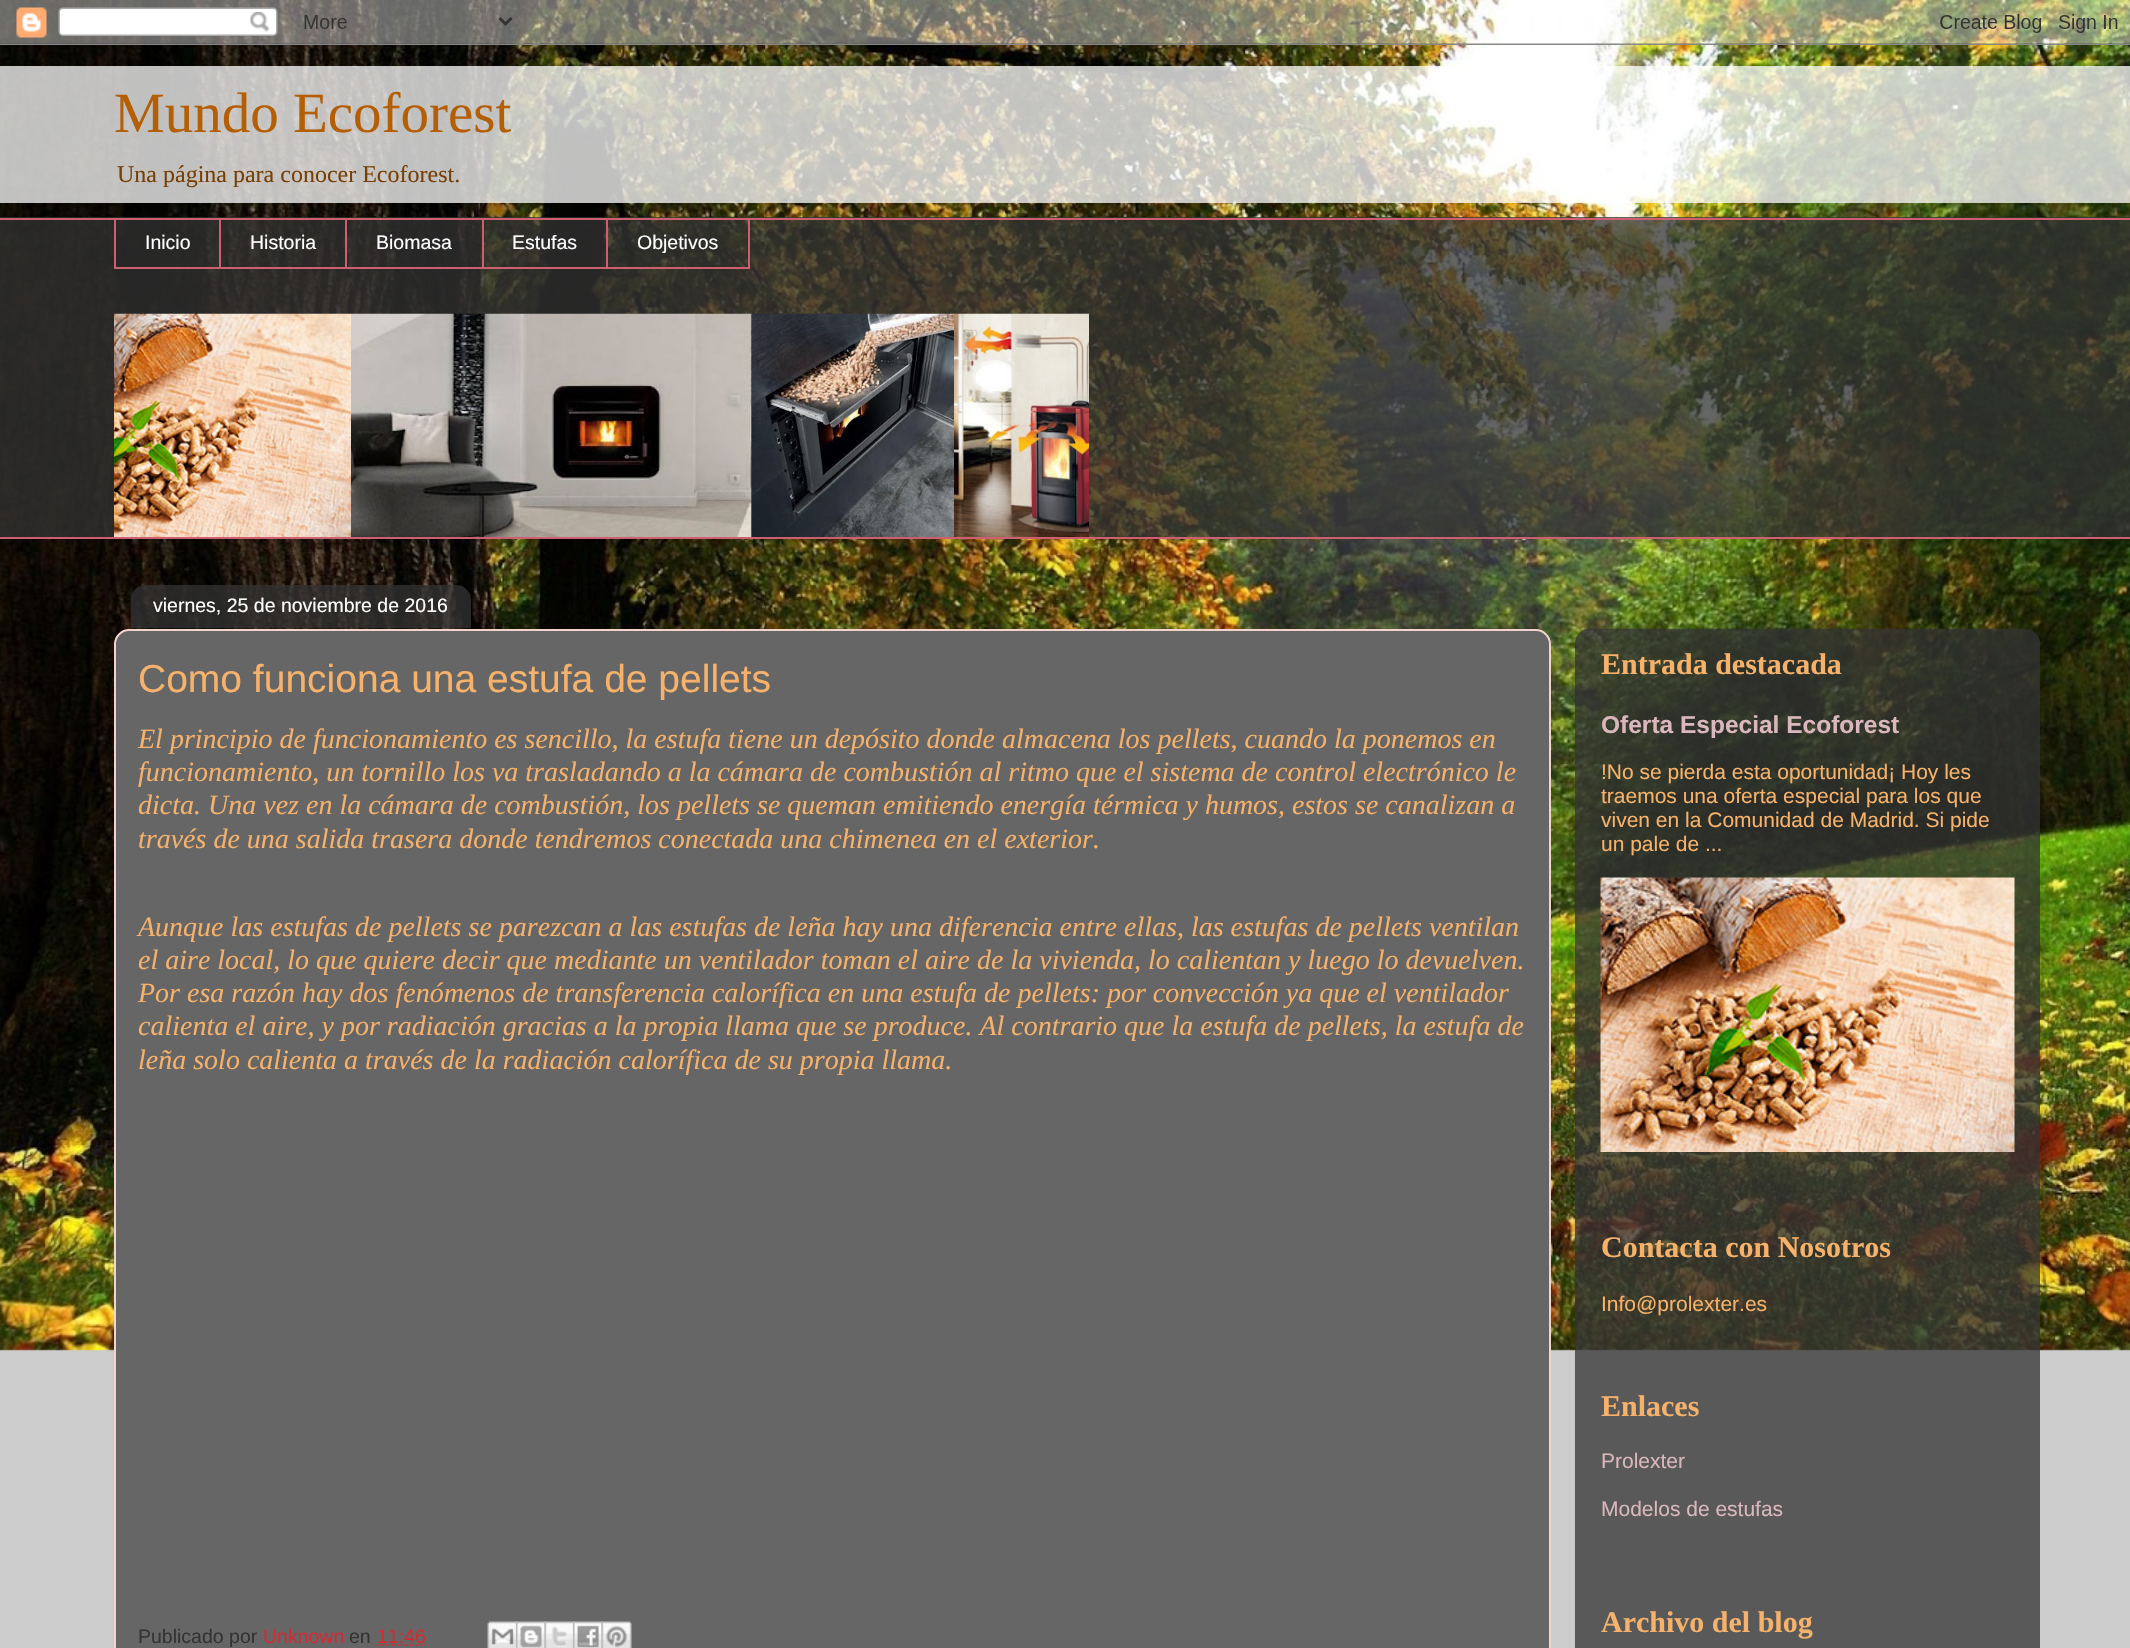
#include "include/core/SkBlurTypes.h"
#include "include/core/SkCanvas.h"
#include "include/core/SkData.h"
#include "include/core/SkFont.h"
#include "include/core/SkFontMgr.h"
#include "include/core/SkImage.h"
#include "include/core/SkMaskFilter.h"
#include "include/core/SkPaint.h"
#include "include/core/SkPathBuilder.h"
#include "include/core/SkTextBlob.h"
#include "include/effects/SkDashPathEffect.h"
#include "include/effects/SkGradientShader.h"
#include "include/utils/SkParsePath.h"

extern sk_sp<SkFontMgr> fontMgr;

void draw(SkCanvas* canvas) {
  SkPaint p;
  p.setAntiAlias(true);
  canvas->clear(SkColorSetRGB(204, 204, 204));
  canvas->drawImageRect(SkImages::DeferredFromEncodedData(SkData::MakeFromFileName("images/1.png")), SkRect::MakeLTRB(0, 0, 2130, 1351), SkSamplingOptions());
  canvas->drawImageRect(SkImages::DeferredFromEncodedData(SkData::MakeFromFileName("images/2.png")), SkRect::MakeLTRB(0, 0, 2130, 45), SkSamplingOptions());
  p.setColor(SkColorSetARGB(191, 255, 255, 255));
  canvas->drawRect(SkRect::MakeLTRB(0, 66, 2130, 203), p);
  p.setColor(SkColorSetARGB(191, 51, 51, 51));
  canvas->drawRect(SkRect::MakeLTRB(0, 217, 2130, 537), p);
  p.setColor(SkColorSetRGB(206, 95, 112));
  canvas->drawRect(SkRect::MakeLTRB(0, 218, 2130, 220), p);
  canvas->drawRect(SkRect::MakeLTRB(114, 267, 606, 269), p);
  canvas->drawRect(SkRect::MakeLTRB(114, 218, 116, 269), p);
  canvas->drawRect(SkRect::MakeLTRB(219, 218, 221, 269), p);
  canvas->drawRect(SkRect::MakeLTRB(345, 218, 347, 269), p);
  canvas->drawRect(SkRect::MakeLTRB(482, 218, 484, 269), p);
  p.setStyle(SkPaint::kStroke_Style);
  p.setStrokeWidth(2);
  canvas->drawRect(SkRect::MakeLTRB(607, 219, 749, 268), p);
  canvas->drawImageRect(SkImages::DeferredFromEncodedData(SkData::MakeFromFileName("images/3.png")), SkRect::MakeLTRB(114, 313, 351, 537), SkSamplingOptions());
  canvas->drawImageRect(SkImages::DeferredFromEncodedData(SkData::MakeFromFileName("images/4.png")), SkRect::MakeLTRB(351, 313, 752, 537), SkSamplingOptions());
  canvas->drawImageRect(SkImages::DeferredFromEncodedData(SkData::MakeFromFileName("images/5.png")), SkRect::MakeLTRB(751, 313, 954, 537), SkSamplingOptions());
  canvas->drawImageRect(SkImages::DeferredFromEncodedData(SkData::MakeFromFileName("images/6.png")), SkRect::MakeLTRB(954, 313, 1089, 537), SkSamplingOptions());
  p.setStyle(SkPaint::kFill_Style);
  canvas->drawRect(SkRect::MakeLTRB(0, 537, 2130, 539), p);
  p.setColor(SkColorSetRGB(102, 102, 102));
  canvas->drawPath(SkPathBuilder().moveTo(129, 630).lineTo(1536, 630).cubicTo(1543.5f, 630, 1550, 636.5f, 1550, 644).lineTo(1550, 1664).lineTo(115, 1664).lineTo(115, 644).cubicTo(115, 636.5f, 121.5f, 630, 129, 630).close().detach(), p);
  p.setStyle(SkPaint::kStroke_Style);
  p.setColor(SkColorSetRGB(244, 211, 204));
  canvas->drawPath(SkPathBuilder().moveTo(129, 630).lineTo(1536, 630).cubicTo(1543.5f, 630, 1550, 636.5f, 1550, 644).lineTo(1550, 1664).lineTo(115, 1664).lineTo(115, 644).cubicTo(115, 636.5f, 121.5f, 630, 129, 630).close().detach(), p);
  canvas->drawImageRect(SkImages::DeferredFromEncodedData(SkData::MakeFromFileName("images/7.png")), SkRect::MakeLTRB(130, 585, 471, 629), SkSamplingOptions());
  p.setStrokeWidth(1.5f);
  p.setColor(SkColorSetRGB(213, 42, 51));
  p.setPathEffect(SkDashPathEffect::Make({{1.5f, 1.5f}}, 0));
  canvas->drawPath(SkPathBuilder().moveTo(376.5f, 1645).lineTo(425.5f, 1645).detach(), p);
  p.setPathEffect(nullptr);
  canvas->drawImageRect(SkImages::DeferredFromEncodedData(SkData::MakeFromFileName("images/8.png")), SkRect::MakeLTRB(487, 1621, 518, 1648), SkSamplingOptions());
  canvas->drawImageRect(SkImages::DeferredFromEncodedData(SkData::MakeFromFileName("images/9.png")), SkRect::MakeLTRB(516, 1621, 546, 1648), SkSamplingOptions());
  canvas->drawImageRect(SkImages::DeferredFromEncodedData(SkData::MakeFromFileName("images/10.png")), SkRect::MakeLTRB(544, 1621, 575, 1648), SkSamplingOptions());
  canvas->drawImageRect(SkImages::DeferredFromEncodedData(SkData::MakeFromFileName("images/11.png")), SkRect::MakeLTRB(573, 1621, 603, 1648), SkSamplingOptions());
  canvas->drawImageRect(SkImages::DeferredFromEncodedData(SkData::MakeFromFileName("images/12.png")), SkRect::MakeLTRB(601, 1621, 632, 1648), SkSamplingOptions());
  canvas->drawImageRect(SkImages::DeferredFromEncodedData(SkData::MakeFromFileName("images/13.png")), SkRect::MakeLTRB(1575, 628, 2040, 1648), SkSamplingOptions());
  canvas->drawImageRect(SkImages::DeferredFromEncodedData(SkData::MakeFromFileName("images/14.png")), SkRect::MakeLTRB(1600, 877, 2015, 1152), SkSamplingOptions());
  SkFont font1(fontMgr->matchFamilyStyle("Liberation Serif", SkFontStyle::Normal()), 57);
  font1.setSubpixel(true);
  p.setStyle(SkPaint::kFill_Style);
  p.setColor(SkColorSetRGB(180, 95, 6));
  canvas->drawString("Mundo Ecoforest", 114, 132, font1, p);
  SkFont font2(fontMgr->matchFamilyStyle("Liberation Serif", SkFontStyle::Normal()), 24);
  font2.setSubpixel(true);
  p.setColor(SkColorSetRGB(120, 63, 4));
  canvas->drawString("Una página para conocer Ecoforest.", 117, 182, font2, p);
  SkFont font3(fontMgr->matchFamilyStyle("Liberation Sans", SkFontStyle::Normal()), 19.5f);
  font3.setSubpixel(true);
  p.setColor(SK_ColorWHITE);
  canvas->drawString("Inicio", 145, 249, font3, p);
  canvas->drawString("Historia", 250, 249, font3, p);
  canvas->drawString("Biomasa", 376, 249, font3, p);
  canvas->drawString("Estufas", 512, 249, font3, p);
  canvas->drawString("Objetivos", 637, 249, font3, p);
  canvas->drawString("viernes, 25 de noviembre de 2016", 153, 612, font3, p);
  SkFont font4(fontMgr->matchFamilyStyle("Liberation Sans", SkFontStyle::Normal()), 39);
  font4.setSubpixel(true);
  p.setColor(SkColorSetRGB(246, 178, 107));
  canvas->drawString("Como funciona una estufa de pellets", 138, 692, font4, p);
  SkFont font5(fontMgr->matchFamilyStyle("Liberation Serif", SkFontStyle::Italic()), 28);
  font5.setSubpixel(true);
  canvas->drawString("El principio de funcionamiento es sencillo, la estufa tiene un depósito donde almacena los pellets, cuando la ponemos en", 138, 748, font5, p);
  canvas->drawString("funcionamiento, un tornillo los va trasladando a la cámara de combustión al ritmo que el sistema de control electrónico le", 138, 781, font5, p);
  canvas->drawString("dicta. Una vez en la cámara de combustión, los pellets se queman emitiendo energía térmica y humos, estos se canalizan a", 138, 814, font5, p);
  canvas->drawString("través de una salida trasera donde tendremos conectada una chimenea en el exterior.", 138, 848, font5, p);
  canvas->drawString("Aunque las estufas de pellets se parezcan a las estufas de leña hay una diferencia entre ellas, las estufas de pellets ventilan", 138, 936, font5, p);
  canvas->drawString("el aire local, lo que quiere decir que mediante un ventilador toman el aire de la vivienda, lo calientan y luego lo devuelven.", 138, 969, font5, p);
  canvas->drawString("Por esa razón hay dos fenómenos de transferencia calorífica en una estufa de pellets: por convección ya que el ventilador", 138, 1002, font5, p);
  canvas->drawString("calienta el aire, y por radiación gracias a la propia llama que se produce. Al contrario que la estufa de pellets, la estufa de", 138, 1035, font5, p);
  canvas->drawString("leña solo calienta a través de la radiación calorífica de su propia llama.", 138, 1069, font5, p);
  p.setColor(SkColorSetRGB(51, 51, 51));
  canvas->drawString("Publicado por", 138, 1643, font3, p);
  p.setColor(SkColorSetRGB(213, 42, 51));
  canvas->drawString("Unknown", 263, 1643, font3, p);
  p.setColor(SkColorSetRGB(51, 51, 51));
  canvas->drawString("en", 349, 1643, font3, p);
  p.setColor(SkColorSetRGB(213, 42, 51));
  canvas->drawString("11:46", 377, 1643, font3, p);
  SkFont font6(fontMgr->matchFamilyStyle("Liberation Serif", SkFontStyle::Bold()), 30);
  font6.setSubpixel(true);
  p.setColor(SkColorSetRGB(246, 178, 107));
  canvas->drawString("Entrada destacada", 1601, 674, font6, p);
  SkFont font7(fontMgr->matchFamilyStyle("Liberation Sans", SkFontStyle::Bold()), 24.5f);
  font7.setSubpixel(true);
  p.setColor(SkColorSetRGB(218, 183, 188));
  canvas->drawString("Oferta Especial Ecoforest", 1601, 733, font7, p);
  SkFont font8(fontMgr->matchFamilyStyle("Liberation Sans", SkFontStyle::Normal()), 21);
  font8.setSubpixel(true);
  p.setColor(SkColorSetRGB(246, 178, 107));
  canvas->drawString("!No se pierda esta oportunidad¡ Hoy les", 1601, 779, font8, p);
  canvas->drawString("traemos una oferta especial para los que", 1601, 803, font8, p);
  canvas->drawString("viven en la Comunidad de Madrid. Si pide", 1601, 827, font8, p);
  canvas->drawString("un pale de ...", 1601, 851, font8, p);
  canvas->drawString("Contacta con Nosotros", 1601, 1257, font6, p);
  canvas->drawString("Info@prolexter.es", 1601, 1311, font8, p);
  canvas->drawString("Enlaces", 1601, 1416, font6, p);
  p.setColor(SkColorSetRGB(218, 183, 188));
  canvas->drawString("Prolexter", 1601, 1468, font8, p);
  canvas->drawString("Modelos de estufas", 1601, 1516, font8, p);
  p.setColor(SkColorSetRGB(246, 178, 107));
  canvas->drawString("Archivo del blog", 1601, 1632, font6, p);
}
